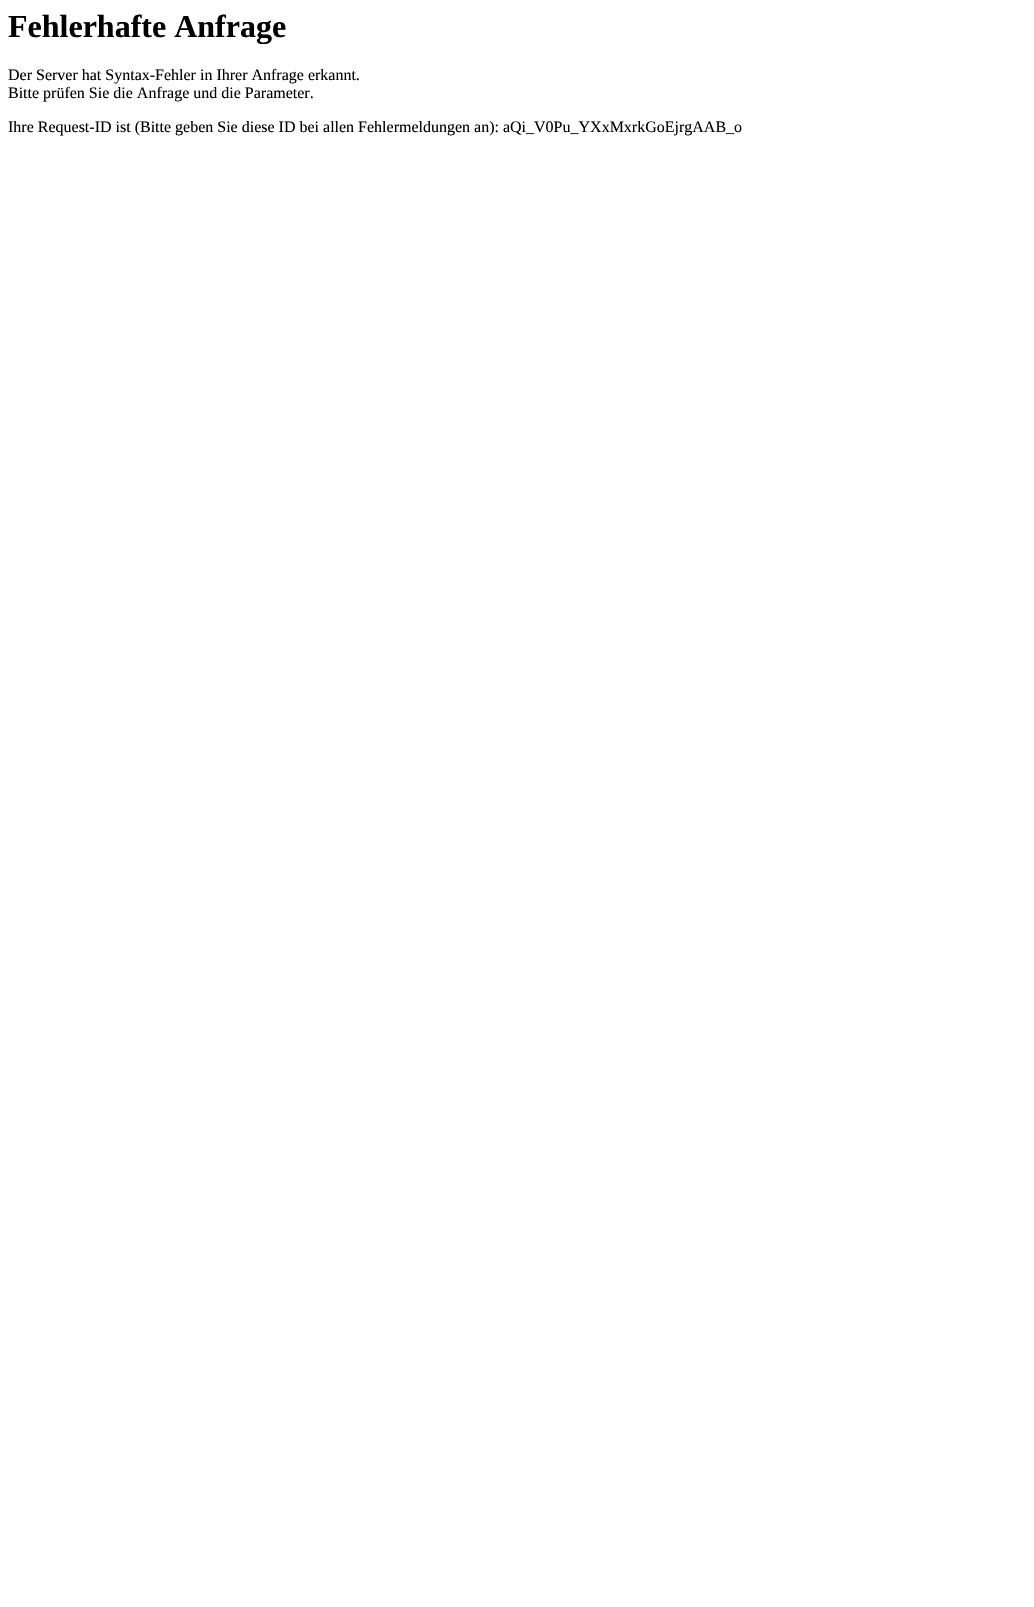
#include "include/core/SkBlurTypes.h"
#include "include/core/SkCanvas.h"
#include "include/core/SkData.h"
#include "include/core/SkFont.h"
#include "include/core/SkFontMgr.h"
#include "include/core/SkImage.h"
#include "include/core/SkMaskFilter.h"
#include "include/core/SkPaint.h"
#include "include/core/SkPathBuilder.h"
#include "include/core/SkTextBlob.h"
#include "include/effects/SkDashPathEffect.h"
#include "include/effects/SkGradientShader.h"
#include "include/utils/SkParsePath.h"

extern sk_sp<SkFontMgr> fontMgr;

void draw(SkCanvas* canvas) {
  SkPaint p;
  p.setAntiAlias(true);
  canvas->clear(SK_ColorWHITE);
  SkFont font1(fontMgr->matchFamilyStyle("Liberation Serif", SkFontStyle::Bold()), 32);
  font1.setSubpixel(true);
  p.setColor(SK_ColorBLACK);
  canvas->drawString("Fehlerhafte Anfrage", 8, 37, font1, p);
  SkFont font2(fontMgr->matchFamilyStyle("Liberation Serif", SkFontStyle::Normal()), 16);
  font2.setSubpixel(true);
  canvas->drawString("Der Server hat Syntax-Fehler in Ihrer Anfrage erkannt.", 8, 80, font2, p);
  canvas->drawString("Bitte prüfen Sie die Anfrage und die Parameter.", 8, 98, font2, p);
  canvas->drawString("Ihre Request-ID ist (Bitte geben Sie diese ID bei allen Fehlermeldungen an): aQi_V0Pu_YXxMxrkGoEjrgAAB_o", 8, 132, font2, p);
}
